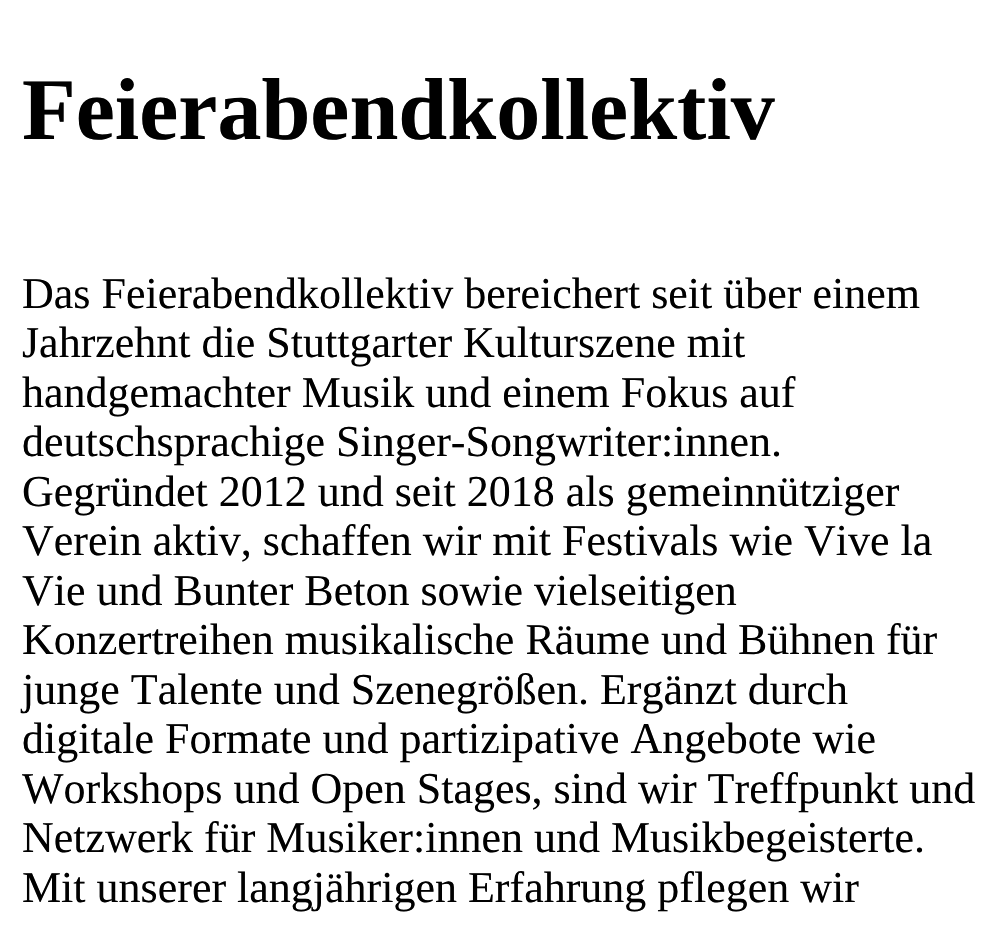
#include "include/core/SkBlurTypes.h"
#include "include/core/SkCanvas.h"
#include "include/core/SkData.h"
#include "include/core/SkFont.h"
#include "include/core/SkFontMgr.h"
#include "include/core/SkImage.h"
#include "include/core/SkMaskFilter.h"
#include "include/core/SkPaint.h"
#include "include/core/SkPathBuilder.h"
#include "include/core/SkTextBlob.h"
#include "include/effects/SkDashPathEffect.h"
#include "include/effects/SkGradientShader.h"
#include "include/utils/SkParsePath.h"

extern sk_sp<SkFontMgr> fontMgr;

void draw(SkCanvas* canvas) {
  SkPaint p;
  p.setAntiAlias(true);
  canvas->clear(SK_ColorWHITE);
  SkFont font1(fontMgr->matchFamilyStyle("Liberation Serif", SkFontStyle::Bold()), 88);
  font1.setSubpixel(true);
  p.setColor(SK_ColorBLACK);
  canvas->drawString("Feierabendkollektiv", 22, 139, font1, p);
  SkFont font2(fontMgr->matchFamilyStyle("Liberation Serif", SkFontStyle::Normal()), 44);
  font2.setSubpixel(true);
  canvas->drawString("Das Feierabendkollektiv bereichert seit über einem", 22, 308, font2, p);
  canvas->drawString("Jahrzehnt die Stuttgarter Kulturszene mit", 22, 357, font2, p);
  canvas->drawString("handgemachter Musik und einem Fokus auf", 22, 407, font2, p);
  canvas->drawString("deutschsprachige Singer-Songwriter:innen.", 22, 456, font2, p);
  canvas->drawString("Gegründet 2012 und seit 2018 als gemeinnütziger", 22, 506, font2, p);
  canvas->drawString("Verein aktiv, schaffen wir mit Festivals wie Vive la", 22, 555, font2, p);
  canvas->drawString("Vie und Bunter Beton sowie vielseitigen", 22, 605, font2, p);
  canvas->drawString("Konzertreihen musikalische Räume und Bühnen für", 22, 654, font2, p);
  canvas->drawString("junge Talente und Szenegrößen. Ergänzt durch", 22, 704, font2, p);
  canvas->drawString("digitale Formate und partizipative Angebote wie", 22, 753, font2, p);
  canvas->drawString("Workshops und Open Stages, sind wir Treffpunkt und", 22, 803, font2, p);
  canvas->drawString("Netzwerk für Musiker:innen und Musikbegeisterte.", 22, 852, font2, p);
  canvas->drawString("Mit unserer langjährigen Erfahrung pflegen wir", 22, 902, font2, p);
}
